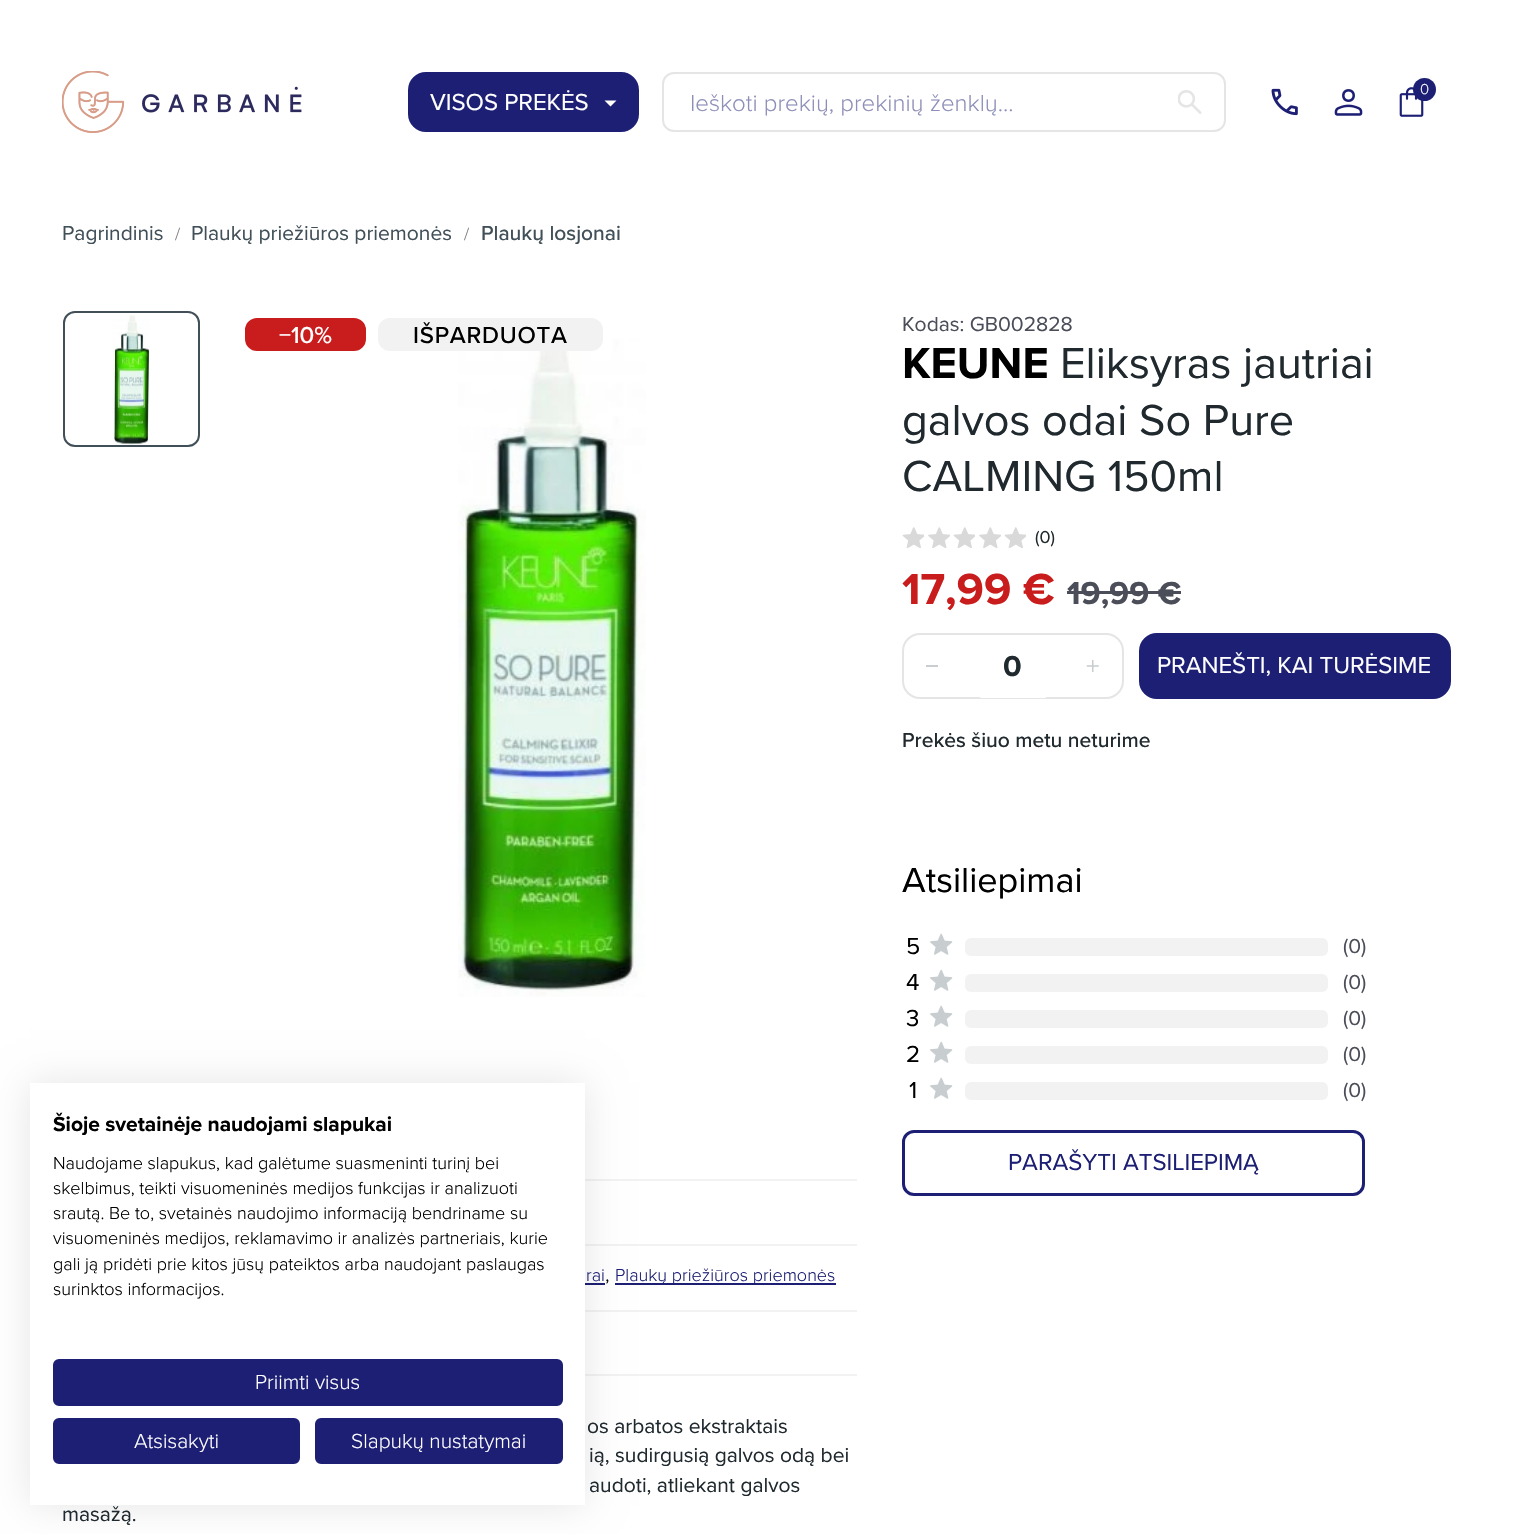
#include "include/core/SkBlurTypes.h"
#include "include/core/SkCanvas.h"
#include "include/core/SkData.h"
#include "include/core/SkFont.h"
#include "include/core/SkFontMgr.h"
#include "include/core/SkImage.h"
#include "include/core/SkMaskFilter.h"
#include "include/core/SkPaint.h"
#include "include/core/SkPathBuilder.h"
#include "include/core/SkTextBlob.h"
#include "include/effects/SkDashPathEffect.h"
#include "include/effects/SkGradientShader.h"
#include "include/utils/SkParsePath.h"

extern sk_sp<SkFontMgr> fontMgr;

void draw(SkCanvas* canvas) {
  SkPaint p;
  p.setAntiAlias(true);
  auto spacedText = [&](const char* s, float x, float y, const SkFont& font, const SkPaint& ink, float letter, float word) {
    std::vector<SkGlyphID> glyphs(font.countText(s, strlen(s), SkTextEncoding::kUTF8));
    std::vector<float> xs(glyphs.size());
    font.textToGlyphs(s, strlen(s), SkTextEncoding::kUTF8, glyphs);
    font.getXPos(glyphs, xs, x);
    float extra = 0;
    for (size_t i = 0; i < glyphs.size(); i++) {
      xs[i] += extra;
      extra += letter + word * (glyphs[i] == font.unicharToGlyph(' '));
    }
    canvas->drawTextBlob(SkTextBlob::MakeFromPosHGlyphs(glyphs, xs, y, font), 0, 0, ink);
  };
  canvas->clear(SK_ColorWHITE);
  canvas->drawImageRect(SkImages::DeferredFromEncodedData(SkData::MakeFromFileName("images/1.png")), SkRect::MakeLTRB(62, 71, 302, 133), SkSamplingOptions());
  p.setColor(SkColorSetRGB(28, 31, 115));
  canvas->drawRoundRect(SkRect::MakeLTRB(409, 73, 638, 131), 17, 17, p);
  p.setStyle(SkPaint::kStroke_Style);
  p.setStrokeWidth(2);
  canvas->drawRoundRect(SkRect::MakeLTRB(409, 73, 638, 131), 17, 17, p);
  p.setStyle(SkPaint::kFill_Style);
  p.setColor(SK_ColorWHITE);
  canvas->drawPath(SkPathBuilder().moveTo(604.5f, 100.5f).lineTo(616.5f, 100.5f).lineTo(610.5f, 106.5f).close().detach(), p);
  p.setStyle(SkPaint::kStroke_Style);
  p.setColor(SkColorSetRGB(229, 229, 229));
  canvas->drawRoundRect(SkRect::MakeLTRB(663, 73, 1225, 131), 11, 11, p);
  canvas->drawImageRect(SkImages::DeferredFromEncodedData(SkData::MakeFromFileName("images/2.png")), SkRect::MakeLTRB(1178, 90, 1202, 114), SkSamplingOptions());
  canvas->drawImageRect(SkImages::DeferredFromEncodedData(SkData::MakeFromFileName("images/3.png")), SkRect::MakeLTRB(1271, 88, 1298, 116), SkSamplingOptions());
  canvas->drawImageRect(SkImages::DeferredFromEncodedData(SkData::MakeFromFileName("images/4.png")), SkRect::MakeLTRB(1334, 89, 1363, 116), SkSamplingOptions());
  canvas->drawImageRect(SkImages::DeferredFromEncodedData(SkData::MakeFromFileName("images/5.png")), SkRect::MakeLTRB(1399, 87, 1424, 117), SkSamplingOptions());
  p.setStyle(SkPaint::kFill_Style);
  p.setColor(SkColorSetRGB(28, 31, 115));
  canvas->drawCircle(1424.5f, 89.5f, 11.5f, p);
  canvas->drawImageRect(SkImages::DeferredFromEncodedData(SkData::MakeFromFileName("images/6.png")), SkRect::MakeLTRB(112, 315, 150, 445), SkSamplingOptions());
  p.setStyle(SkPaint::kStroke_Style);
  p.setColor(SkColorSetRGB(65, 80, 88));
  canvas->drawRoundRect(SkRect::MakeLTRB(64, 312, 199, 446), 11, 11, p);
  canvas->drawImageRect(SkImages::DeferredFromEncodedData(SkData::MakeFromFileName("images/7.png")), SkRect::MakeLTRB(458, 338, 646, 997), SkSamplingOptions());
  p.setStyle(SkPaint::kFill_Style);
  p.setColor(SkColorSetRGB(201, 29, 29));
  canvas->drawRoundRect(SkRect::MakeLTRB(246, 319, 365, 350), 11, 11, p);
  p.setStyle(SkPaint::kStroke_Style);
  canvas->drawRoundRect(SkRect::MakeLTRB(246, 319, 365, 350), 11, 11, p);
  p.setStyle(SkPaint::kFill_Style);
  p.setColor(SkColorSetRGB(242, 242, 243));
  canvas->drawRoundRect(SkRect::MakeLTRB(379, 319, 602, 350), 11, 11, p);
  p.setStyle(SkPaint::kStroke_Style);
  canvas->drawRoundRect(SkRect::MakeLTRB(379, 319, 602, 350), 11, 11, p);
  p.setStyle(SkPaint::kFill_Style);
  canvas->drawRect(SkRect::MakeLTRB(585, 1179, 857, 1181), p);
  canvas->drawRect(SkRect::MakeLTRB(585, 1244, 857, 1246), p);
  canvas->drawRect(SkRect::MakeLTRB(585, 1310, 857, 1312), p);
  p.setColor(SkColorSetRGB(28, 31, 115));
  canvas->drawRect(SkRect::MakeLTRB(585, 1283, 605, 1285), p);
  canvas->drawRect(SkRect::MakeLTRB(615, 1283, 836, 1285), p);
  p.setColor(SkColorSetRGB(242, 242, 243));
  canvas->drawRect(SkRect::MakeLTRB(585, 1374, 857, 1376), p);
  canvas->drawImageRect(SkImages::DeferredFromEncodedData(SkData::MakeFromFileName("images/8.png")), SkRect::MakeLTRB(902, 527, 924, 548), SkSamplingOptions());
  canvas->drawImageRect(SkImages::DeferredFromEncodedData(SkData::MakeFromFileName("images/9.png")), SkRect::MakeLTRB(928, 527, 950, 548), SkSamplingOptions());
  canvas->drawImageRect(SkImages::DeferredFromEncodedData(SkData::MakeFromFileName("images/8.png")), SkRect::MakeLTRB(953, 527, 975, 548), SkSamplingOptions());
  canvas->drawImageRect(SkImages::DeferredFromEncodedData(SkData::MakeFromFileName("images/9.png")), SkRect::MakeLTRB(979, 527, 1001, 548), SkSamplingOptions());
  canvas->drawImageRect(SkImages::DeferredFromEncodedData(SkData::MakeFromFileName("images/8.png")), SkRect::MakeLTRB(1004, 527, 1026, 548), SkSamplingOptions());
  p.setColor(SkColorSetRGB(75, 78, 89));
  canvas->drawRect(SkRect::MakeLTRB(1067, 591, 1181, 594), p);
  p.setStyle(SkPaint::kStroke_Style);
  p.setColor(SkColorSetRGB(229, 229, 229));
  canvas->drawRoundRect(SkRect::MakeLTRB(903, 634, 1123, 698), 17, 17, p);
  p.setStyle(SkPaint::kFill_Style);
  p.setColor(SkColorSetRGB(200, 205, 208));
  canvas->drawRect(SkRect::MakeLTRB(926, 665, 938, 667), p);
  canvas->save();
  canvas->clipPath(SkPathBuilder().moveTo(920, 635).lineTo(1105, 635).cubicTo(1114.5f, 635, 1122, 642.5f, 1122, 652).lineTo(1122, 681).cubicTo(1122, 690.5f, 1114.5f, 698, 1105, 698).lineTo(920, 698).cubicTo(910.5f, 698, 903, 690.5f, 903, 681).lineTo(903, 652).cubicTo(903, 642.5f, 910.5f, 635, 920, 635).close().detach(), true);
  p.setColor(SK_ColorWHITE);
  canvas->drawRoundRect(SkRect::MakeLTRB(974, 633, 1052, 699), 12, 12, p);
  canvas->restore();
  canvas->drawImageRect(SkImages::DeferredFromEncodedData(SkData::MakeFromFileName("images/10.png")), SkRect::MakeLTRB(1086, 660, 1099, 672), SkSamplingOptions());
  p.setColor(SkColorSetRGB(28, 31, 115));
  canvas->drawRoundRect(SkRect::MakeLTRB(1140, 634, 1450, 698), 17, 17, p);
  p.setStyle(SkPaint::kStroke_Style);
  canvas->drawRoundRect(SkRect::MakeLTRB(1140, 634, 1450, 698), 17, 17, p);
  canvas->drawImageRect(SkImages::DeferredFromEncodedData(SkData::MakeFromFileName("images/11.png")), SkRect::MakeLTRB(930, 933, 953, 955), SkSamplingOptions());
  p.setStyle(SkPaint::kFill_Style);
  p.setColor(SkColorSetRGB(242, 242, 243));
  canvas->drawRoundRect(SkRect::MakeLTRB(965, 938, 1328, 956), 6, 6, p);
  canvas->drawImageRect(SkImages::DeferredFromEncodedData(SkData::MakeFromFileName("images/11.png")), SkRect::MakeLTRB(930, 969, 953, 991), SkSamplingOptions());
  canvas->drawRoundRect(SkRect::MakeLTRB(965, 974, 1328, 992), 6, 6, p);
  canvas->drawImageRect(SkImages::DeferredFromEncodedData(SkData::MakeFromFileName("images/11.png")), SkRect::MakeLTRB(930, 1005, 953, 1027), SkSamplingOptions());
  canvas->drawRoundRect(SkRect::MakeLTRB(965, 1010, 1328, 1028), 6, 6, p);
  canvas->drawImageRect(SkImages::DeferredFromEncodedData(SkData::MakeFromFileName("images/11.png")), SkRect::MakeLTRB(930, 1041, 953, 1063), SkSamplingOptions());
  canvas->drawRoundRect(SkRect::MakeLTRB(965, 1046, 1328, 1064), 6, 6, p);
  canvas->drawImageRect(SkImages::DeferredFromEncodedData(SkData::MakeFromFileName("images/11.png")), SkRect::MakeLTRB(930, 1077, 953, 1099), SkSamplingOptions());
  canvas->drawRoundRect(SkRect::MakeLTRB(965, 1082, 1328, 1100), 6, 6, p);
  p.setStyle(SkPaint::kStroke_Style);
  p.setStrokeWidth(3);
  p.setColor(SkColorSetRGB(28, 31, 115));
  canvas->drawRoundRect(SkRect::MakeLTRB(903.5f, 1131.5f, 1363.5f, 1194.5f), 10.5f, 10.5f, p);
  p.setStyle(SkPaint::kFill_Style);
  p.setColor(SkColorSetARGB(26, 0, 0, 0));
  p.setMaskFilter(SkMaskFilter::MakeBlur(kNormal_SkBlurStyle, 18));
  canvas->drawRect(SkRect::MakeLTRB(30, 1083, 585, 1505), p);
  p.setMaskFilter(nullptr);
  p.setColor(SK_ColorWHITE);
  canvas->drawRect(SkRect::MakeLTRB(30, 1083, 585, 1505), p);
  p.setColor(SkColorSetRGB(28, 31, 115));
  canvas->drawRoundRect(SkRect::MakeLTRB(54, 1360, 562, 1405), 5, 5, p);
  p.setStyle(SkPaint::kStroke_Style);
  p.setStrokeWidth(2);
  canvas->drawRoundRect(SkRect::MakeLTRB(54, 1360, 562, 1405), 5, 5, p);
  p.setStyle(SkPaint::kFill_Style);
  canvas->drawRoundRect(SkRect::MakeLTRB(54, 1419, 299, 1463), 5, 5, p);
  p.setStyle(SkPaint::kStroke_Style);
  canvas->drawRoundRect(SkRect::MakeLTRB(54, 1419, 299, 1463), 5, 5, p);
  p.setStyle(SkPaint::kFill_Style);
  canvas->drawRoundRect(SkRect::MakeLTRB(316, 1419, 562, 1463), 5, 5, p);
  p.setStyle(SkPaint::kStroke_Style);
  canvas->drawRoundRect(SkRect::MakeLTRB(316, 1419, 562, 1463), 5, 5, p);
  SkFont font1(fontMgr->matchFamilyStyle("Proxima Nova", SkFontStyle::Normal()), 24);
  font1.setSubpixel(true);
  p.setStyle(SkPaint::kFill_Style);
  p.setColor(SK_ColorWHITE);
  canvas->drawString("VISOS PREKĖS", 430, 110, font1, p);
  SkFont font2(fontMgr->matchFamilyStyle("Proxima Nova", SkFontStyle(300, SkFontStyle::kNormal_Width, SkFontStyle::kUpright_Slant)), 24);
  font2.setSubpixel(true);
  p.setColor(SkColorSetRGB(142, 143, 185));
  canvas->drawString("Ieškoti prekių, prekinių ženklų...", 690, 111, font2, p);
  SkFont font3(fontMgr->matchFamilyStyle("Proxima Nova", SkFontStyle(300, SkFontStyle::kNormal_Width, SkFontStyle::kUpright_Slant)), 15);
  font3.setSubpixel(true);
  p.setColor(SK_ColorWHITE);
  canvas->drawString("0", 1420, 94, font3, p);
  SkFont font4(fontMgr->matchFamilyStyle("Proxima Nova", SkFontStyle::Normal()), 21);
  font4.setSubpixel(true);
  p.setColor(SkColorSetRGB(65, 80, 88));
  canvas->drawString("Pagrindinis", 62, 240, font4, p);
  SkFont font5(fontMgr->matchFamilyStyle("Proxima Nova", SkFontStyle(300, SkFontStyle::kNormal_Width, SkFontStyle::kUpright_Slant)), 18);
  font5.setSubpixel(true);
  p.setColor(SkColorSetRGB(122, 122, 122));
  canvas->drawString("/", 175, 240, font5, p);
  p.setColor(SkColorSetRGB(65, 80, 88));
  canvas->drawString("Plaukų priežiūros priemonės", 191, 240, font4, p);
  p.setColor(SkColorSetRGB(122, 122, 122));
  canvas->drawString("/", 464, 240, font5, p);
  SkFont font6(fontMgr->matchFamilyStyle("Proxima Nova", SkFontStyle(500, SkFontStyle::kNormal_Width, SkFontStyle::kUpright_Slant)), 21);
  font6.setSubpixel(true);
  p.setColor(SkColorSetRGB(65, 80, 88));
  canvas->drawString("Plaukų losjonai", 481, 240, font6, p);
  SkFont font7(fontMgr->matchFamilyStyle("Proxima Nova", SkFontStyle(500, SkFontStyle::kNormal_Width, SkFontStyle::kUpright_Slant)), 24);
  font7.setSubpixel(true);
  p.setColor(SK_ColorWHITE);
  canvas->drawString("−10%", 279, 343, font7, p);
  p.setColor(SK_ColorBLACK);
  spacedText("IŠPARDUOTA", 413, 343, font7, p, 0.75f, 0);
  p.setColor(SkColorSetRGB(28, 31, 115));
  canvas->drawString("rai", 586, 1281, font5, p);
  SkFont font8(fontMgr->matchFamilyStyle("Proxima Nova", SkFontStyle(300, SkFontStyle::kNormal_Width, SkFontStyle::kUpright_Slant)), 21);
  font8.setSubpixel(true);
  p.setColor(SK_ColorBLACK);
  canvas->drawString(",", 605, 1281, font8, p);
  p.setColor(SkColorSetRGB(28, 31, 115));
  canvas->drawString("Plaukų priežiūros priemonės", 615, 1281, font5, p);
  p.setColor(SkColorSetRGB(31, 41, 46));
  canvas->drawString("os arbatos ekstraktais", 587, 1433, font4, p);
  canvas->drawString("ią, sudirgusią galvos odą bei", 589, 1462, font4, p);
  canvas->drawString("audoti, atliekant galvos", 589, 1492, font4, p);
  canvas->drawString("masažą.", 62, 1521, font4, p);
  p.setColor(SkColorSetRGB(75, 78, 89));
  canvas->drawString("Kodas: GB002828", 902, 331, font4, p);
  SkFont font9(fontMgr->matchFamilyStyle("Proxima Nova", SkFontStyle::Bold()), 45);
  font9.setSubpixel(true);
  p.setColor(SK_ColorBLACK);
  canvas->drawString("KEUNE", 902, 378, font9, p);
  SkFont font10(fontMgr->matchFamilyStyle("Proxima Nova", SkFontStyle::Normal()), 45);
  font10.setSubpixel(true);
  p.setColor(SkColorSetRGB(31, 41, 46));
  canvas->drawString("Eliksyras jautriai", 1060, 378, font10, p);
  canvas->drawString("galvos odai So Pure", 902, 435, font10, p);
  canvas->drawString("CALMING 150ml", 902, 491, font10, p);
  SkFont font11(fontMgr->matchFamilyStyle("Proxima Nova", SkFontStyle::Normal()), 18);
  font11.setSubpixel(true);
  canvas->drawString("(0)", 1035, 543, font11, p);
  p.setColor(SkColorSetRGB(201, 29, 29));
  canvas->drawString("17,99 €", 902, 604, font9, p);
  SkFont font12(fontMgr->matchFamilyStyle("Proxima Nova", SkFontStyle::Bold()), 33);
  font12.setSubpixel(true);
  p.setColor(SkColorSetRGB(75, 78, 89));
  canvas->drawString("19,99 €", 1067, 604, font12, p);
  SkFont font13(fontMgr->matchFamilyStyle("Proxima Nova", SkFontStyle::Bold()), 30);
  font13.setSubpixel(true);
  p.setColor(SkColorSetRGB(31, 41, 46));
  canvas->drawString("0", 1003, 676, font13, p);
  p.setColor(SK_ColorWHITE);
  canvas->drawString("PRANEŠTI, KAI TURĖSIME", 1157, 673, font1, p);
  p.setColor(SkColorSetRGB(31, 41, 46));
  canvas->drawString("Prekės šiuo metu neturime", 902, 747, font6, p);
  SkFont font14(fontMgr->matchFamilyStyle("Proxima Nova", SkFontStyle::Normal()), 36);
  font14.setSubpixel(true);
  p.setColor(SK_ColorBLACK);
  canvas->drawString("Atsiliepimai", 902, 892, font14, p);
  canvas->drawString("5", 906, 954, font1, p);
  p.setColor(SkColorSetRGB(75, 78, 89));
  canvas->drawString("(0)", 1343, 953, font4, p);
  p.setColor(SK_ColorBLACK);
  canvas->drawString("4", 906, 990, font1, p);
  p.setColor(SkColorSetRGB(75, 78, 89));
  canvas->drawString("(0)", 1343, 989, font4, p);
  p.setColor(SK_ColorBLACK);
  canvas->drawString("3", 906, 1026, font1, p);
  p.setColor(SkColorSetRGB(75, 78, 89));
  canvas->drawString("(0)", 1343, 1025, font4, p);
  p.setColor(SK_ColorBLACK);
  canvas->drawString("2", 906, 1062, font1, p);
  p.setColor(SkColorSetRGB(75, 78, 89));
  canvas->drawString("(0)", 1343, 1061, font4, p);
  p.setColor(SK_ColorBLACK);
  canvas->drawString("1", 909, 1098, font1, p);
  p.setColor(SkColorSetRGB(75, 78, 89));
  canvas->drawString("(0)", 1343, 1097, font4, p);
  p.setColor(SkColorSetRGB(28, 31, 115));
  canvas->drawString("PARAŠYTI ATSILIEPIMĄ", 1008, 1170, font1, p);
  SkFont font15(fontMgr->matchFamilyStyle("Proxima Nova", SkFontStyle::Bold()), 21);
  font15.setSubpixel(true);
  p.setColor(SK_ColorBLACK);
  canvas->drawString("Šioje svetainėje naudojami slapukai", 53, 1131, font15, p);
  canvas->drawString("Naudojame slapukus, kad galėtume suasmeninti turinį bei", 53, 1169, font5, p);
  canvas->drawString("skelbimus, teikti visuomeninės medijos funkcijas ir analizuoti", 53, 1194, font5, p);
  canvas->drawString("srautą. Be to, svetainės naudojimo informaciją bendriname su", 53, 1219, font5, p);
  canvas->drawString("visuomeninės medijos, reklamavimo ir analizės partneriais, kurie", 53, 1244, font5, p);
  canvas->drawString("gali ją pridėti prie kitos jūsų pateiktos arba naudojant paslaugas", 53, 1270, font5, p);
  canvas->drawString("surinktos informacijos.", 53, 1295, font5, p);
  p.setColor(SK_ColorWHITE);
  canvas->drawString("Priimti visus", 255, 1389, font8, p);
  canvas->drawString("Atsisakyti", 134, 1448, font8, p);
  canvas->drawString("Slapukų nustatymai", 351, 1448, font8, p);
}
